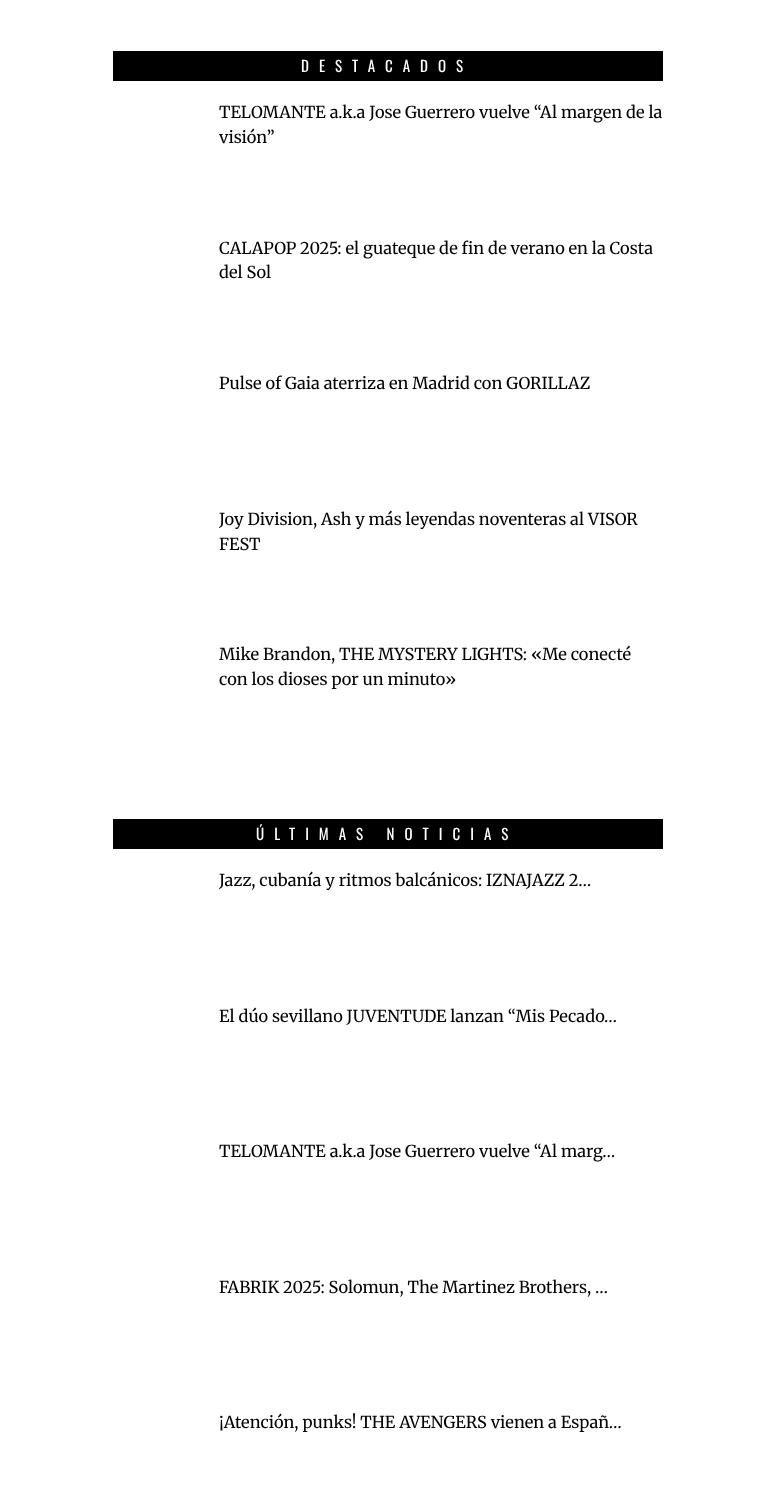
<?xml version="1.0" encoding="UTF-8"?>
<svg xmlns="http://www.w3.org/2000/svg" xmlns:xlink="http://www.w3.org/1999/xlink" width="775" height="1505">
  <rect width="100%" height="100%" fill="#ffffff" />
  <rect x="113" y="51" width="550" height="30" fill="#000000" />
  <rect x="113" y="819" width="550" height="30" fill="#000000" />
  <text x="301" y="72" style="font-family: Oswald; font-size: 15px; letter-spacing: 10px; fill: #ffffff">DESTACADOS</text>
  <text x="219" y="118" style="font-family: Merriweather; font-size: 16.4px; fill: #000000">TELOMANTE a.k.a Jose Guerrero vuelve “Al margen de la</text>
  <text x="219" y="143" style="font-family: Merriweather; font-size: 16.4px; fill: #000000">visión”</text>
  <text x="219" y="254" style="font-family: Merriweather; font-size: 16.4px; fill: #000000">CALAPOP 2025: el guateque de fin de verano en la Costa</text>
  <text x="219" y="278" style="font-family: Merriweather; font-size: 16.4px; fill: #000000">del Sol</text>
  <text x="219" y="389" style="font-family: Merriweather; font-size: 16.4px; fill: #000000">Pulse of Gaia aterriza en Madrid con GORILLAZ</text>
  <text x="219" y="525" style="font-family: Merriweather; font-size: 16.4px; fill: #000000">Joy Division, Ash y más leyendas noventeras al VISOR</text>
  <text x="219" y="550" style="font-family: Merriweather; font-size: 16.4px; fill: #000000">FEST</text>
  <text x="219" y="660" style="font-family: Merriweather; font-size: 16.4px; fill: #000000">Mike Brandon, THE MYSTERY LIGHTS: «Me conecté</text>
  <text x="219" y="685" style="font-family: Merriweather; font-size: 16.4px; fill: #000000">con los dioses por un minuto»</text>
  <text x="256" y="840" style="font-family: Oswald; font-size: 15px; letter-spacing: 10px; fill: #ffffff">ÚLTIMAS NOTICIAS</text>
  <text x="219" y="886" style="font-family: Merriweather; font-size: 16.4px; fill: #000000">Jazz, cubanía y ritmos balcánicos: IZNAJAZZ 2…</text>
  <text x="219" y="1022" style="font-family: Merriweather; font-size: 16.4px; fill: #000000">El dúo sevillano JUVENTUDE lanzan “Mis Pecado…</text>
  <text x="219" y="1157" style="font-family: Merriweather; font-size: 16.4px; fill: #000000">TELOMANTE a.k.a Jose Guerrero vuelve “Al marg…</text>
  <text x="219" y="1293" style="font-family: Merriweather; font-size: 16.4px; fill: #000000">FABRIK 2025: Solomun, The Martinez Brothers, …</text>
  <text x="219" y="1428" style="font-family: Merriweather; font-size: 16.4px; fill: #000000">¡Atención, punks! THE AVENGERS vienen a Españ…</text>
</svg>
